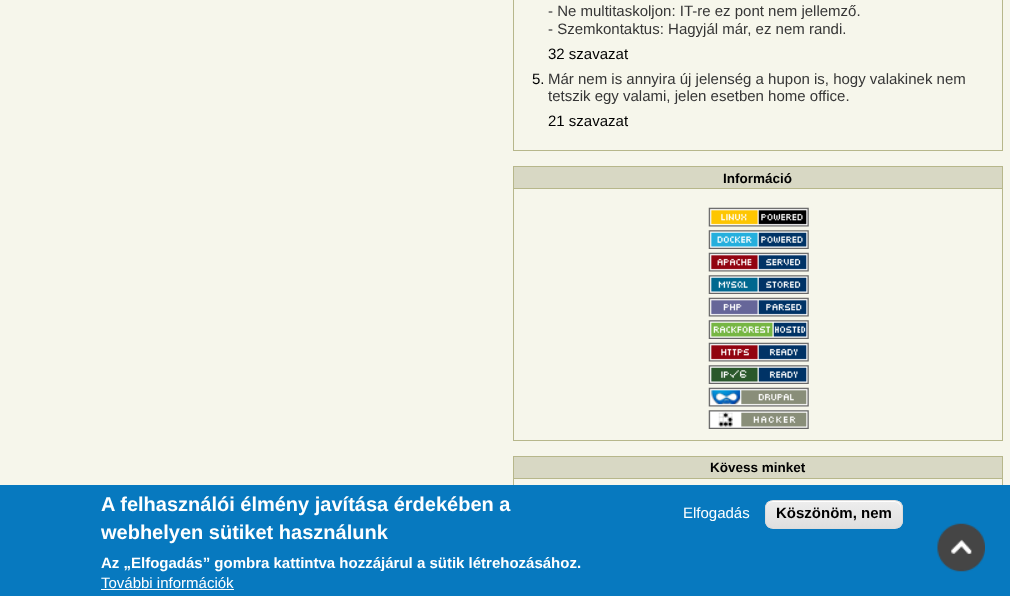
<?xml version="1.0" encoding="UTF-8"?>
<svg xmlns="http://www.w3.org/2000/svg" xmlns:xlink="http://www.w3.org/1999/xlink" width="1010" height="596">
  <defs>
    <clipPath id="clip1"><rect x="765" y="500" width="138" height="29" rx="8" /></clipPath>
    <linearGradient id="g1" gradientUnits="userSpaceOnUse" x1="834" y1="501" x2="834" y2="528"><stop offset="0.05" stop-color="#ededed" /><stop offset="1" stop-color="#dfdfdf" /></linearGradient>
  </defs>
  <rect width="100%" height="100%" fill="#f6f6eb" />
  <rect x="513.5" y="-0.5" width="489" height="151" fill="none" stroke="#b7b78b" />
  <rect x="513.5" y="166.5" width="489" height="274" fill="none" stroke="#b7b78b" />
  <rect x="513.5" y="166.5" width="489" height="22" fill="#d8d8c4" stroke="#b7b78b" />
  <image x="708" y="207" width="101" height="20" xlink:href="image1.png" />
  <image x="708" y="230" width="101" height="19" xlink:href="image2.png" />
  <image x="708" y="252" width="101" height="20" xlink:href="image3.png" />
  <image x="708" y="275" width="101" height="19" xlink:href="image4.png" />
  <image x="708" y="297" width="101" height="20" xlink:href="image5.png" />
  <image x="708" y="320" width="101" height="19" xlink:href="image6.png" />
  <image x="708" y="342" width="101" height="20" xlink:href="image7.png" />
  <image x="708" y="365" width="101" height="19" xlink:href="image8.png" />
  <image x="708" y="387" width="101" height="20" xlink:href="image9.png" />
  <image x="708" y="410" width="101" height="19" xlink:href="image10.png" />
  <rect x="513.5" y="456.5" width="489" height="68" fill="none" stroke="#b7b78b" />
  <rect x="513.5" y="456.5" width="489" height="22" fill="#d8d8c4" stroke="#b7b78b" />
  <rect y="485" width="1010" height="111" fill="#0779bf" />
  <rect x="101" y="589" width="133" height="1" fill="#ffffff" />
  <g clip-path="url(#clip1)">
    <rect x="765" y="501" width="138" height="27" fill="url(#g1)" />
  </g>
  <path d="M 772 502 h 123 c 3 0 6 3 6 7 v -2 c 0 -3 -3 -6 -6 -6 h -123 c -3 0 -6 3 -6 6 v 2 c 0 -4 3 -7 6 -7 z" fill="#ffffff" />
  <rect x="765.5" y="500.5" width="137" height="28" rx="7.5" fill="none" stroke="#dcdcdc" />
  <image x="937" y="523" width="48" height="49" xlink:href="image11.png" />
  <text x="548" y="16" style="font-family: Liberation Sans; font-size: 15px; fill: #363636">- Ne multitaskoljon: IT-re ez pont nem jellemző.</text>
  <text x="548" y="34" style="font-family: Liberation Sans; font-size: 15px; fill: #363636">- Szemkontaktus: Hagyjál már, ez nem randi.</text>
  <text x="548" y="59" style="font-family: Liberation Sans; font-size: 15px; fill: #000000">32 szavazat</text>
  <text x="532" y="84" style="font-family: Liberation Sans; font-size: 15px; fill: #000000">5.</text>
  <text x="548" y="84" style="font-family: Liberation Sans; font-size: 15px; fill: #363636">Már nem is annyira új jelenség a hupon is, hogy valakinek nem</text>
  <text x="548" y="101" style="font-family: Liberation Sans; font-size: 15px; fill: #363636">tetszik egy valami, jelen esetben home office.</text>
  <text x="548" y="126" style="font-family: Liberation Sans; font-size: 15px; fill: #000000">21 szavazat</text>
  <text x="723" y="183" style="font-family: Liberation Sans; font-size: 13.5px; font-weight: bold; fill: #000000">Információ</text>
  <text x="710" y="472" style="font-family: Liberation Sans; font-size: 13.5px; font-weight: bold; fill: #000000">Kövess minket</text>
  <text x="101" y="511" style="font-family: Liberation Sans; font-size: 20px; font-weight: bold; fill: #ffffff">A felhasználói élmény javítása érdekében a</text>
  <text x="101" y="539" style="font-family: Liberation Sans; font-size: 20px; font-weight: bold; fill: #ffffff">webhelyen sütiket használunk</text>
  <text x="101" y="568" style="font-family: Liberation Sans; font-size: 15px; font-weight: bold; fill: #ffffff">Az „Elfogadás” gombra kattintva hozzájárul a sütik létrehozásához.</text>
  <text x="101" y="588" style="font-family: Liberation Sans; font-size: 15px; fill: #ffffff">További információk</text>
  <text x="683" y="518" style="font-family: Liberation Sans; font-size: 15px; fill: #ffffff">Elfogadás</text>
  <text x="776" y="518" style="font-family: Liberation Sans; font-size: 15px; font-weight: bold; fill: #000000">Köszönöm, nem</text>
</svg>
